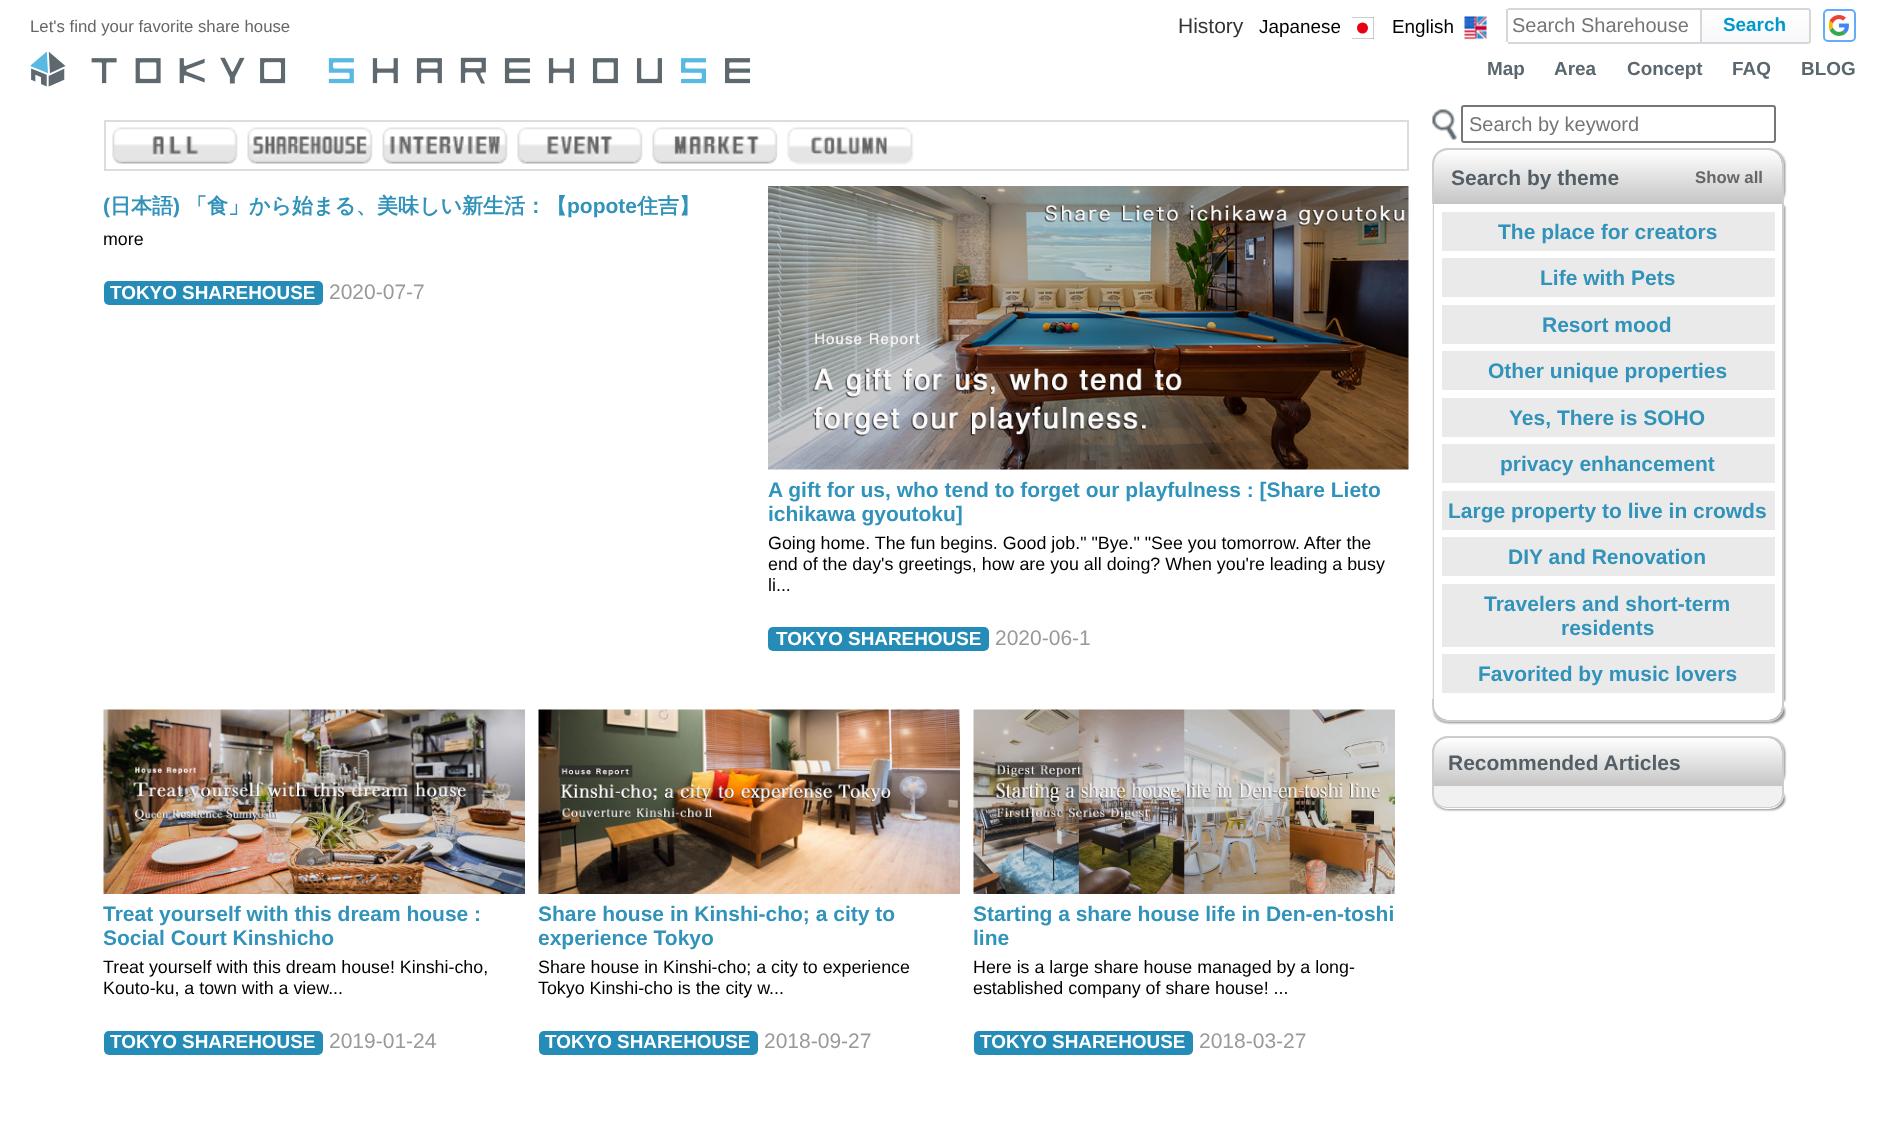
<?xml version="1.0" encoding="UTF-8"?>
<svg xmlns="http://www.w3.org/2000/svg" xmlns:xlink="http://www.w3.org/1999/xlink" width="1885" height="1125">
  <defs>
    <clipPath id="clip1"><rect x="1352" y="17" width="22" height="22" /></clipPath>
    <clipPath id="clip2"><path d="M 1700 8 h 108 c 1.5 0 3 1.5 3 3 v 30 c 0 1.5 -1.5 3 -3 3 h -108 z" /></clipPath>
    <linearGradient id="g1" gradientUnits="userSpaceOnUse" x1="1701" y1="9" x2="1701" y2="42"><stop offset="0" stop-color="#ffffff" /><stop offset="1" stop-color="#f8f8fa" /></linearGradient>
    <linearGradient id="g2" gradientUnits="userSpaceOnUse" x1="1608" y1="150" x2="1608" y2="204"><stop offset="0" stop-color="#ffffff" /><stop offset="1" stop-color="#c5c5c5" /></linearGradient>
    <linearGradient id="g3" gradientUnits="userSpaceOnUse" x1="1608" y1="738" x2="1608" y2="786"><stop offset="0" stop-color="#ffffff" /><stop offset="1" stop-color="#c5c5c5" /></linearGradient>
    <clipPath id="clip3"><path d="M 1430 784 h 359 v 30 h -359 z m 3 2 h 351 v 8 c 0 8.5 -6.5 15 -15 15 h -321 c -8.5 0 -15 -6.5 -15 -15 z" clip-rule="evenodd" /></clipPath>
    <clipPath id="clip4"><rect x="1469" y="113" width="300" height="22" /></clipPath>
  </defs>
  <rect width="100%" height="100%" fill="#ffffff" />
  <g clip-path="url(#clip1)">
    <path d="M 1351.5 17 h 22.5 v 22 h -22.5 z" fill="none" stroke="#707070" stroke-width="0.7" />
  </g>
  <circle cx="1362.5" cy="28" r="5.5" fill="#e60012" />
  <image x="1464" y="16" width="23" height="24" xlink:href="image1.png" />
  <rect x="1508" y="8" width="193" height="2" fill="#d6d7db" />
  <rect x="1508" y="42" width="193" height="2" fill="#d6d7db" />
  <rect x="1506" y="9" width="2" height="33" fill="#d6d7db" />
  <g clip-path="url(#clip2)">
    <rect x="1702" y="9" width="109" height="33" fill="url(#g1)" />
  </g>
  <path d="M 1701 9 h 107 c 1 0 2 1 2 2 v 30 c 0 1 -1 2 -2 2 h -107 z" fill="none" stroke="#d6d7db" stroke-width="2" />
  <rect x="1824" y="10" width="31" height="31" rx="4" fill="none" stroke="#66aaff" stroke-width="2" />
  <image x="1829" y="15" width="20" height="21" xlink:href="image2.png" />
  <image x="30" y="51" width="720" height="36" xlink:href="image3.png" />
  <rect x="105" y="121" width="1303" height="49" fill="none" stroke="#dddddd" stroke-width="2" />
  <image x="112" y="127" width="126" height="37" xlink:href="image4.png" />
  <image x="247" y="127" width="126" height="37" xlink:href="image5.png" />
  <image x="382" y="127" width="126" height="37" xlink:href="image6.png" />
  <image x="517" y="127" width="126" height="37" xlink:href="image7.png" />
  <image x="652" y="127" width="126" height="37" xlink:href="image8.png" />
  <image x="787" y="127" width="127" height="38" xlink:href="image9.png" />
  <rect x="104" y="281" width="219" height="24" rx="5" fill="#258cb7" />
  <image x="768" y="186" width="641" height="284" xlink:href="image10.png" />
  <rect x="768" y="627" width="221" height="24" rx="5" fill="#258cb7" />
  <image x="103" y="709" width="422" height="185" xlink:href="image11.png" />
  <rect x="104" y="1031" width="219" height="24" rx="5" fill="#258cb7" />
  <image x="538" y="709" width="422" height="185" xlink:href="image12.png" />
  <rect x="539" y="1031" width="219" height="24" rx="5" fill="#258cb7" />
  <image x="973" y="709" width="422" height="185" xlink:href="image13.png" />
  <rect x="974" y="1031" width="219" height="24" rx="5" fill="#258cb7" />
  <image x="1432" y="109" width="25" height="31" xlink:href="image14.png" />
  <rect x="1462" y="106" width="313" height="36" rx="2" fill="none" stroke="#767676" stroke-width="2" />
  <rect x="1434" y="150" width="351" height="56" rx="15" fill="#888888" filter="blur(1px)" />
  <path d="M 1448 150 h 320 c 7.5 0 14 6.5 14 14 v 40 h -348 v -40 c 0 -7.5 6.5 -14 14 -14 z" fill="url(#g2)" />
  <path d="M 1448 148 h 320 c 9 0 16 7 16 16 v 40 h -352 v -40 c 0 -9 7 -16 16 -16 z m 0 2 h 320 c 8 0 14 6 14 14 v 40 h -348 v -40 c 0 -8 6 -14 14 -14 z" fill="#cdcdcd" fill-rule="evenodd" />
  <rect x="1434" y="206" width="351" height="495" fill="#888888" filter="blur(1px)" />
  <rect x="1782" y="204" width="2" height="495" fill="#cdcdcd" />
  <rect x="1433" y="204" width="1" height="495" fill="#cdcdcd" />
  <rect x="1434" y="701" width="351" height="22" rx="15" fill="#888888" filter="blur(1px)" />
  <rect x="1434" y="204" width="348" height="495" fill="#ffffff" />
  <rect x="1442" y="212" width="333" height="39" fill="#eaeaea" />
  <rect x="1442" y="258" width="333" height="39" fill="#eaeaea" />
  <rect x="1442" y="305" width="333" height="39" fill="#eaeaea" />
  <rect x="1442" y="351" width="333" height="39" fill="#eaeaea" />
  <rect x="1442" y="398" width="333" height="39" fill="#eaeaea" />
  <rect x="1442" y="444" width="333" height="39" fill="#eaeaea" />
  <rect x="1442" y="491" width="333" height="39" fill="#eaeaea" />
  <rect x="1442" y="537" width="333" height="39" fill="#eaeaea" />
  <rect x="1442" y="584" width="333" height="63" fill="#eaeaea" />
  <rect x="1442" y="654" width="333" height="39" fill="#eaeaea" />
  <path d="M 1434 699 h 348 v 7 c 0 7.5 -6.5 14 -14 14 h -320 c -7.5 0 -14 -6.5 -14 -14 z" fill="#ffffff" />
  <path d="M 1432 699 h 352 v 7 c 0 9 -7 16 -16 16 h -320 c -9 0 -16 -7 -16 -16 z m 2 0 h 348 v 7 c 0 8 -6 14 -14 14 h -320 c -8 0 -14 -6 -14 -14 z" fill="#cdcdcd" fill-rule="evenodd" />
  <rect x="1434" y="738" width="351" height="50" rx="15" fill="#888888" filter="blur(1px)" />
  <path d="M 1448 738 h 320 c 7.5 0 14 6.5 14 14 v 34 h -348 v -34 c 0 -7.5 6.5 -14 14 -14 z" fill="url(#g3)" />
  <path d="M 1448 736 h 320 c 9 0 16 7 16 16 v 34 h -352 v -34 c 0 -9 7 -16 16 -16 z m 0 2 h 320 c 8 0 14 6 14 14 v 34 h -348 v -34 c 0 -8 6 -14 14 -14 z" fill="#cdcdcd" fill-rule="evenodd" />
  <g clip-path="url(#clip3)">
    <rect x="1434" y="788" width="351" height="22" rx="15" fill="#888888" filter="blur(1px)" />
  </g>
  <path d="M 1434 786 h 348 v 7 c 0 7.5 -6.5 14 -14 14 h -320 c -7.5 0 -14 -6.5 -14 -14 z" fill="#f1f1f1" />
  <path d="M 1432 786 h 352 v 8 c 0 8 -7 14 -16 14 h -320 c -9 0 -16 -6 -16 -14 z m 2 0 h 348 v 8 c 0 7 -6 13 -14 13 h -320 c -8 0 -14 -6 -14 -13 z" fill="#cdcdcd" fill-rule="evenodd" />
  <text x="30" y="32" style="font-family: Liberation Sans; font-size: 16.75px; fill: #666666">Let's find your favorite share house</text>
  <text x="1178" y="33" style="font-family: Liberation Sans; font-size: 21px; fill: #333333">History</text>
  <text x="1259" y="33" style="font-family: Liberation Sans; font-size: 18.9px; fill: #000000">Japanese</text>
  <text x="1392" y="33" style="font-family: Liberation Sans; font-size: 18.9px; fill: #000000">English</text>
  <text x="1512" y="32" style="font-family: Liberation Sans; font-size: 20px; fill: #757575">Search Sharehouse</text>
  <text x="1723" y="31" style="font-family: Liberation Sans; font-size: 18.9px; font-weight: bold; fill: #0099cc">Search</text>
  <text x="1487" y="75" style="font-family: Liberation Sans; font-size: 18.9px; font-weight: bold; fill: #5b676e">Map</text>
  <text x="1554" y="75" style="font-family: Liberation Sans; font-size: 18.9px; font-weight: bold; fill: #5b676e">Area</text>
  <text x="1627" y="75" style="font-family: Liberation Sans; font-size: 18.9px; font-weight: bold; fill: #5b676e">Concept</text>
  <text x="1732" y="75" style="font-family: Liberation Sans; font-size: 18.9px; font-weight: bold; fill: #5b676e">FAQ</text>
  <text x="1801" y="75" style="font-family: Liberation Sans; font-size: 18.9px; font-weight: bold; fill: #5b676e">BLOG</text>
  <text x="103" y="213" style="font-family: Liberation Sans; font-size: 21px; font-weight: bold; fill: #3192ba">(</text>
  <text x="110" y="213" style="font-family: WenQuanYi Zen Hei; font-size: 21px; font-weight: bold; fill: #3192ba">日本語</text>
  <text x="173" y="213" style="font-family: Liberation Sans; font-size: 21px; font-weight: bold; fill: #3192ba">)</text>
  <text x="186" y="213" style="font-family: WenQuanYi Zen Hei; font-size: 21px; font-weight: bold; fill: #3192ba">「食」から始まる、美味しい新生活：【</text>
  <text x="567" y="213" style="font-family: Liberation Sans; font-size: 21px; font-weight: bold; fill: #3192ba">popote</text>
  <text x="637" y="213" style="font-family: WenQuanYi Zen Hei; font-size: 21px; font-weight: bold; fill: #3192ba">住吉】</text>
  <text x="103" y="245" style="font-family: Liberation Sans; font-size: 17.85px; fill: #000000">more</text>
  <text x="110" y="299" style="font-family: Liberation Sans; font-size: 18.9px; font-weight: bold; fill: #ffffff">TOKYO SHAREHOUSE</text>
  <text x="329" y="299" style="font-family: Liberation Sans; font-size: 21px; fill: #999999">2020-07-7</text>
  <text x="768" y="497" style="font-family: Liberation Sans; font-size: 21px; font-weight: bold; fill: #3192ba">A gift for us, who tend to forget our playfulness : [Share Lieto</text>
  <text x="768" y="521" style="font-family: Liberation Sans; font-size: 21px; font-weight: bold; fill: #3192ba">ichikawa gyoutoku]</text>
  <text x="768" y="549" style="font-family: Liberation Sans; font-size: 17.85px; fill: #000000">Going home. The fun begins. Good job." "Bye." "See you tomorrow. After the</text>
  <text x="768" y="570" style="font-family: Liberation Sans; font-size: 17.85px; fill: #000000">end of the day's greetings, how are you all doing? When you're leading a busy</text>
  <text x="768" y="591" style="font-family: Liberation Sans; font-size: 17.85px; fill: #000000">li...</text>
  <text x="776" y="645" style="font-family: Liberation Sans; font-size: 18.9px; font-weight: bold; fill: #ffffff">TOKYO SHAREHOUSE</text>
  <text x="995" y="645" style="font-family: Liberation Sans; font-size: 21px; fill: #999999">2020-06-1</text>
  <text x="103" y="921" style="font-family: Liberation Sans; font-size: 21px; font-weight: bold; fill: #3192ba">Treat yourself with this dream house :</text>
  <text x="103" y="945" style="font-family: Liberation Sans; font-size: 21px; font-weight: bold; fill: #3192ba">Social Court Kinshicho</text>
  <text x="103" y="973" style="font-family: Liberation Sans; font-size: 17.85px; fill: #000000">Treat yourself with this dream house! Kinshi-cho,</text>
  <text x="103" y="994" style="font-family: Liberation Sans; font-size: 17.85px; fill: #000000">Kouto-ku, a town with a view...</text>
  <text x="110" y="1048" style="font-family: Liberation Sans; font-size: 18.9px; font-weight: bold; fill: #ffffff">TOKYO SHAREHOUSE</text>
  <text x="329" y="1048" style="font-family: Liberation Sans; font-size: 21px; fill: #999999">2019-01-24</text>
  <text x="538" y="921" style="font-family: Liberation Sans; font-size: 21px; font-weight: bold; fill: #3192ba">Share house in Kinshi-cho; a city to</text>
  <text x="538" y="945" style="font-family: Liberation Sans; font-size: 21px; font-weight: bold; fill: #3192ba">experience Tokyo</text>
  <text x="538" y="973" style="font-family: Liberation Sans; font-size: 17.85px; fill: #000000">Share house in Kinshi-cho; a city to experience</text>
  <text x="538" y="994" style="font-family: Liberation Sans; font-size: 17.85px; fill: #000000">Tokyo Kinshi-cho is the city w...</text>
  <text x="545" y="1048" style="font-family: Liberation Sans; font-size: 18.9px; font-weight: bold; fill: #ffffff">TOKYO SHAREHOUSE</text>
  <text x="764" y="1048" style="font-family: Liberation Sans; font-size: 21px; fill: #999999">2018-09-27</text>
  <text x="973" y="921" style="font-family: Liberation Sans; font-size: 21px; font-weight: bold; fill: #3192ba">Starting a share house life in Den-en-toshi</text>
  <text x="973" y="945" style="font-family: Liberation Sans; font-size: 21px; font-weight: bold; fill: #3192ba">line</text>
  <text x="973" y="973" style="font-family: Liberation Sans; font-size: 17.85px; fill: #000000">Here is a large share house managed by a long-</text>
  <text x="973" y="994" style="font-family: Liberation Sans; font-size: 17.85px; fill: #000000">established company of share house! ...</text>
  <text x="980" y="1048" style="font-family: Liberation Sans; font-size: 18.9px; font-weight: bold; fill: #ffffff">TOKYO SHAREHOUSE</text>
  <text x="1199" y="1048" style="font-family: Liberation Sans; font-size: 21px; fill: #999999">2018-03-27</text>
  <g clip-path="url(#clip4)">
    <text x="1469" y="131" style="font-family: Liberation Sans; font-size: 20px; fill: #757575">Search by keyword</text>
  </g>
  <text x="1451" y="185" style="font-family: Liberation Sans; font-size: 21px; font-weight: bold; fill: #535f66">Search by theme</text>
  <text x="1695" y="183" style="font-family: Liberation Sans; font-size: 16.75px; font-weight: bold; fill: #666666">Show all</text>
  <text x="1498" y="239" style="font-family: Liberation Sans; font-size: 21px; font-weight: bold; fill: #3192ba">The place for creators</text>
  <text x="1540" y="285" style="font-family: Liberation Sans; font-size: 21px; font-weight: bold; fill: #3192ba">Life with Pets</text>
  <text x="1542" y="332" style="font-family: Liberation Sans; font-size: 21px; font-weight: bold; fill: #3192ba">Resort mood</text>
  <text x="1488" y="378" style="font-family: Liberation Sans; font-size: 21px; font-weight: bold; fill: #3192ba">Other unique properties</text>
  <text x="1509" y="425" style="font-family: Liberation Sans; font-size: 21px; font-weight: bold; fill: #3192ba">Yes, There is SOHO</text>
  <text x="1500" y="471" style="font-family: Liberation Sans; font-size: 21px; font-weight: bold; fill: #3192ba">privacy enhancement</text>
  <text x="1448" y="518" style="font-family: Liberation Sans; font-size: 21px; font-weight: bold; fill: #3192ba">Large property to live in crowds</text>
  <text x="1508" y="564" style="font-family: Liberation Sans; font-size: 21px; font-weight: bold; fill: #3192ba">DIY and Renovation</text>
  <text x="1484" y="611" style="font-family: Liberation Sans; font-size: 21px; font-weight: bold; fill: #3192ba">Travelers and short-term</text>
  <text x="1561" y="635" style="font-family: Liberation Sans; font-size: 21px; font-weight: bold; fill: #3192ba">residents</text>
  <text x="1478" y="681" style="font-family: Liberation Sans; font-size: 21px; font-weight: bold; fill: #3192ba">Favorited by music lovers</text>
  <text x="1448" y="770" style="font-family: Liberation Sans; font-size: 21px; font-weight: bold; fill: #535f66">Recommended Articles</text>
</svg>
